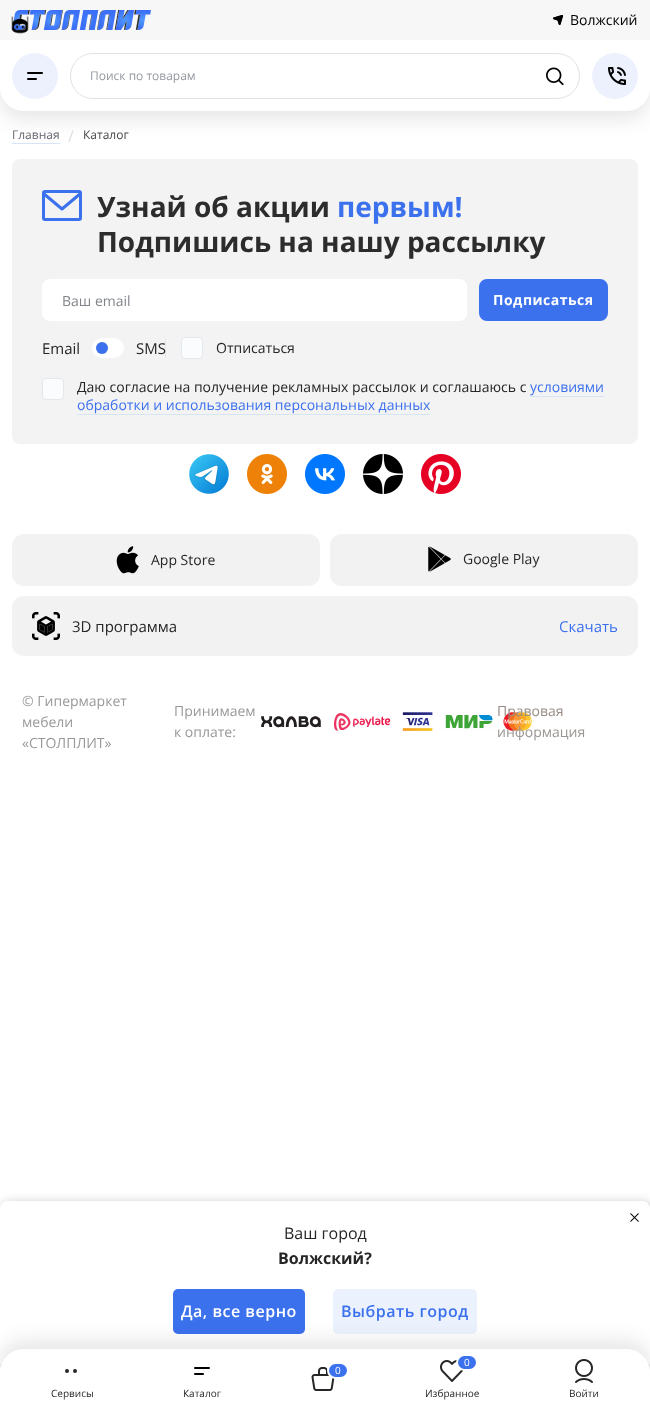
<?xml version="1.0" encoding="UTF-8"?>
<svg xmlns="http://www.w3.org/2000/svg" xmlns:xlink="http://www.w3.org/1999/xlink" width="650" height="1409">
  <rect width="100%" height="100%" fill="#ffffff" />
  <rect x="12" y="143" width="48" height="1" fill="#d6e5f4" />
  <rect y="8" width="650" height="111" rx="24" fill="#000000" fill-opacity="0.1" filter="blur(10px)" />
  <path d="M 0 0 h 650 v 87 c 0 13.5 -10.5 24 -24 24 h -602 c -13.5 0 -24 -10.5 -24 -24 z" fill="#ffffff" />
  <rect width="650" height="40" fill="#f7f7f7" />
  <image x="12" y="10" width="139" height="20" xlink:href="image1.png" />
  <image x="11" y="16" width="18" height="18" xlink:href="image2.png" />
  <image x="553" y="15" width="10" height="10" xlink:href="image3.png" />
  <rect x="2" y="1203" width="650" height="163" rx="8" fill="#000000" fill-opacity="0.25" filter="blur(5.5px)" />
  <path d="M 8 1201 h 634 c 4.5 0 8 3.5 8 8 v 155 h -650 v -155 c 0 -4.5 3.5 -8 8 -8 z" fill="#ffffff" />
  <image x="630" y="1213" width="9" height="9" xlink:href="image4.png" />
  <rect x="174" y="1290" width="130" height="43" rx="4" fill="#3c71ee" stroke="#3c71ee" stroke-width="2" />
  <rect x="334" y="1290" width="142" height="43" rx="4" fill="#ebf1fd" stroke="#ebf1fd" stroke-width="2" />
  <circle cx="35" cy="76" r="23" fill="#ecf1fd" />
  <rect x="27" y="72" width="16" height="2" rx="1" fill="#000000" />
  <rect x="27" y="78" width="10" height="2" rx="1" fill="#000000" />
  <rect x="70.5" y="53.5" width="509" height="45" rx="22.5" fill="none" stroke="#e2e2e2" />
  <image x="546" y="67" width="18" height="19" xlink:href="image5.png" />
  <circle cx="615" cy="76" r="23" fill="#ecf1fd" />
  <image x="608" y="67" width="18" height="18" xlink:href="image6.png" />
  <rect y="1341" width="650" height="60" rx="24" fill="#000000" fill-opacity="0.1" filter="blur(10px)" />
  <path d="M 24 1349 h 602 c 13.5 0 24 10.5 24 24 v 36 h -650 v -36 c 0 -13.5 10.5 -24 24 -24 z" fill="#ffffff" />
  <image x="311" y="1367" width="24" height="24" xlink:href="image7.png" />
  <rect x="328" y="1363" width="20" height="15" rx="7.5" fill="#3c71ee" stroke="#ffffff" stroke-width="2" />
  <image x="440" y="1360" width="24" height="22" xlink:href="image8.png" />
  <rect x="457" y="1355" width="20" height="15" rx="7.5" fill="#3c71ee" stroke="#ffffff" stroke-width="2" />
  <circle cx="75" cy="1371" r="2" fill="#262626" />
  <circle cx="67" cy="1371" r="2" fill="#262626" />
  <rect x="194" y="1367" width="16" height="2" rx="1" fill="#000000" />
  <rect x="194" y="1373" width="10" height="2" rx="1" fill="#000000" />
  <image x="575" y="1359" width="18" height="24" xlink:href="image9.png" />
  <rect x="12" y="159" width="626" height="285" rx="8" fill="#f3f3f3" />
  <rect x="43.5" y="191.5" width="37" height="28" rx="1.5" fill="none" stroke="#3c71ee" stroke-width="3" />
  <path d="M 43.5 193.5 l 18.5 15.5 l 18.5 -15.5" fill="none" stroke="#3c71ee" stroke-width="3" stroke-linejoin="round" />
  <rect x="42" y="279" width="425" height="42" rx="8" fill="#ffffff" />
  <rect x="480" y="280" width="127" height="40" rx="7" fill="#3c71ee" stroke="#3c71ee" stroke-width="2" />
  <rect x="92" y="338" width="32" height="20" rx="10" fill="#ffffff" />
  <circle cx="102" cy="348" r="6" fill="#3c71ee" />
  <rect x="165" y="339" width="1" height="18" fill="#000000" fill-opacity="0.05" />
  <rect x="181.5" y="337.5" width="21" height="21" rx="3.5" fill="#fbfcfd" stroke="#e3e8ed" />
  <rect x="42.5" y="378.5" width="21" height="21" rx="3.5" fill="#fbfcfd" stroke="#e3e8ed" />
  <rect x="530" y="396" width="74" height="1" fill="#d6e5f4" />
  <rect x="77" y="414" width="353" height="1" fill="#d6e5f4" />
  <image x="189" y="454" width="40" height="40" xlink:href="image10.png" />
  <image x="247" y="454" width="40" height="40" xlink:href="image11.png" />
  <image x="305" y="454" width="40" height="40" xlink:href="image12.png" />
  <image x="363" y="454" width="40" height="40" xlink:href="image13.png" />
  <image x="421" y="454" width="40" height="40" xlink:href="image14.png" />
  <rect x="12" y="534" width="308" height="52" rx="12" fill="#f2f2f2" />
  <image x="116" y="546" width="23" height="28" xlink:href="image15.png" />
  <rect x="330" y="534" width="308" height="52" rx="12" fill="#f2f2f2" />
  <image x="428" y="546" width="23" height="26" xlink:href="image16.png" />
  <rect x="12" y="596" width="626" height="60" rx="12" fill="#f2f2f2" />
  <image x="32" y="612" width="28" height="28" xlink:href="image17.png" />
  <image x="261" y="712" width="271" height="19" xlink:href="image18.png" />
  <text x="570" y="25" style="font-family: Open Sans; font-size: 14px; fill: #000000">Волжский</text>
  <text x="284" y="1239" style="font-family: Open Sans; font-size: 16px; fill: #262626">Ваш город</text>
  <text x="278" y="1264" style="font-family: Open Sans; font-size: 16px; font-weight: bold; fill: #262626">Волжский?</text>
  <text x="181" y="1317" style="font-family: Open Sans; font-size: 16px; font-weight: 600; letter-spacing: 0.5px; fill: #ffffff">Да, все верно</text>
  <text x="341" y="1317" style="font-family: Open Sans; font-size: 16px; font-weight: 600; letter-spacing: 0.5px; fill: #3c71ee">Выбрать город</text>
  <text x="90" y="80" style="font-family: Open Sans; font-size: 12px; fill: #9499a0">Поиск по товарам</text>
  <text x="335" y="1374" style="font-family: Open Sans; font-size: 10px; fill: #ffffff">0</text>
  <text x="464" y="1366" style="font-family: Open Sans; font-size: 10px; fill: #ffffff">0</text>
  <text x="425" y="1397" style="font-family: Open Sans; font-size: 10px; fill: #262626">Избранное</text>
  <text x="51" y="1397" style="font-family: Open Sans; font-size: 10px; fill: #262626">Сервисы</text>
  <text x="183" y="1397" style="font-family: Open Sans; font-size: 10px; fill: #262626">Каталог</text>
  <text x="569" y="1397" style="font-family: Open Sans; font-size: 10px; fill: #262626">Войти</text>
  <text x="12" y="139" style="font-family: Open Sans; font-size: 12px; fill: #66696f">Главная</text>
  <text x="68" y="142" style="font-family: Open Sans; font-size: 16px; fill: #dedede">/</text>
  <text x="83" y="139" style="font-family: Open Sans; font-size: 12px; fill: #46494d">Каталог</text>
  <text x="97" y="217" style="font-family: Open Sans; font-size: 28px; font-weight: bold; fill: #2c2c2c">Узнай об акции</text>
  <text x="337" y="217" style="font-family: Open Sans; font-size: 28px; font-weight: bold; fill: #3c71ee">первым!</text>
  <text x="97" y="252" style="font-family: Open Sans; font-size: 28px; font-weight: bold; fill: #2c2c2c">Подпишись на нашу рассылку</text>
  <text x="62" y="306" style="font-family: Open Sans; font-size: 14px; fill: #818489">Ваш email</text>
  <text x="493" y="305" style="font-family: Open Sans; font-size: 14px; font-weight: bold; letter-spacing: 0.5px; fill: #ffffff">Подписаться</text>
  <text x="42" y="354" style="font-family: Open Sans; font-size: 15px; fill: #262626">Email</text>
  <text x="136" y="354" style="font-family: Open Sans; font-size: 15px; fill: #262626">SMS</text>
  <text x="216" y="353" style="font-family: Open Sans; font-size: 14px; fill: #262626">Отписаться</text>
  <text x="77" y="392" style="font-family: Open Sans; font-size: 14px; fill: #262626">Даю согласие на получение рекламных рассылок и соглашаюсь с</text>
  <text x="530" y="392" style="font-family: Open Sans; font-size: 14px; fill: #3c71ee">условиями</text>
  <text x="77" y="410" style="font-family: Open Sans; font-size: 14px; fill: #3c71ee">обработки и использования персональных данных</text>
  <text x="151" y="565" style="font-family: Open Sans; font-size: 14px; fill: #262626">App Store</text>
  <text x="463" y="564" style="font-family: Open Sans; font-size: 14px; fill: #262626">Google Play</text>
  <text x="72" y="632" style="font-family: Open Sans; font-size: 15px; fill: #262626">3D программа</text>
  <text x="559" y="632" style="font-family: Open Sans; font-size: 15px; fill: #3c71ee">Скачать</text>
  <text x="22" y="706" style="font-family: Open Sans; font-size: 14px; fill: #999999">© Гипермаркет</text>
  <text x="22" y="727" style="font-family: Open Sans; font-size: 14px; fill: #999999">мебели</text>
  <text x="22" y="748" style="font-family: Open Sans; font-size: 14px; fill: #999999">«СТОЛПЛИТ»</text>
  <text x="174" y="716" style="font-family: Open Sans; font-size: 14px; fill: #999999">Принимаем</text>
  <text x="174" y="737" style="font-family: Open Sans; font-size: 14px; fill: #999999">к оплате:</text>
  <text x="497" y="716" style="font-family: Open Sans; font-size: 14px; fill: #988b84">Правовая</text>
  <text x="497" y="737" style="font-family: Open Sans; font-size: 14px; fill: #999693">информация</text>
</svg>
